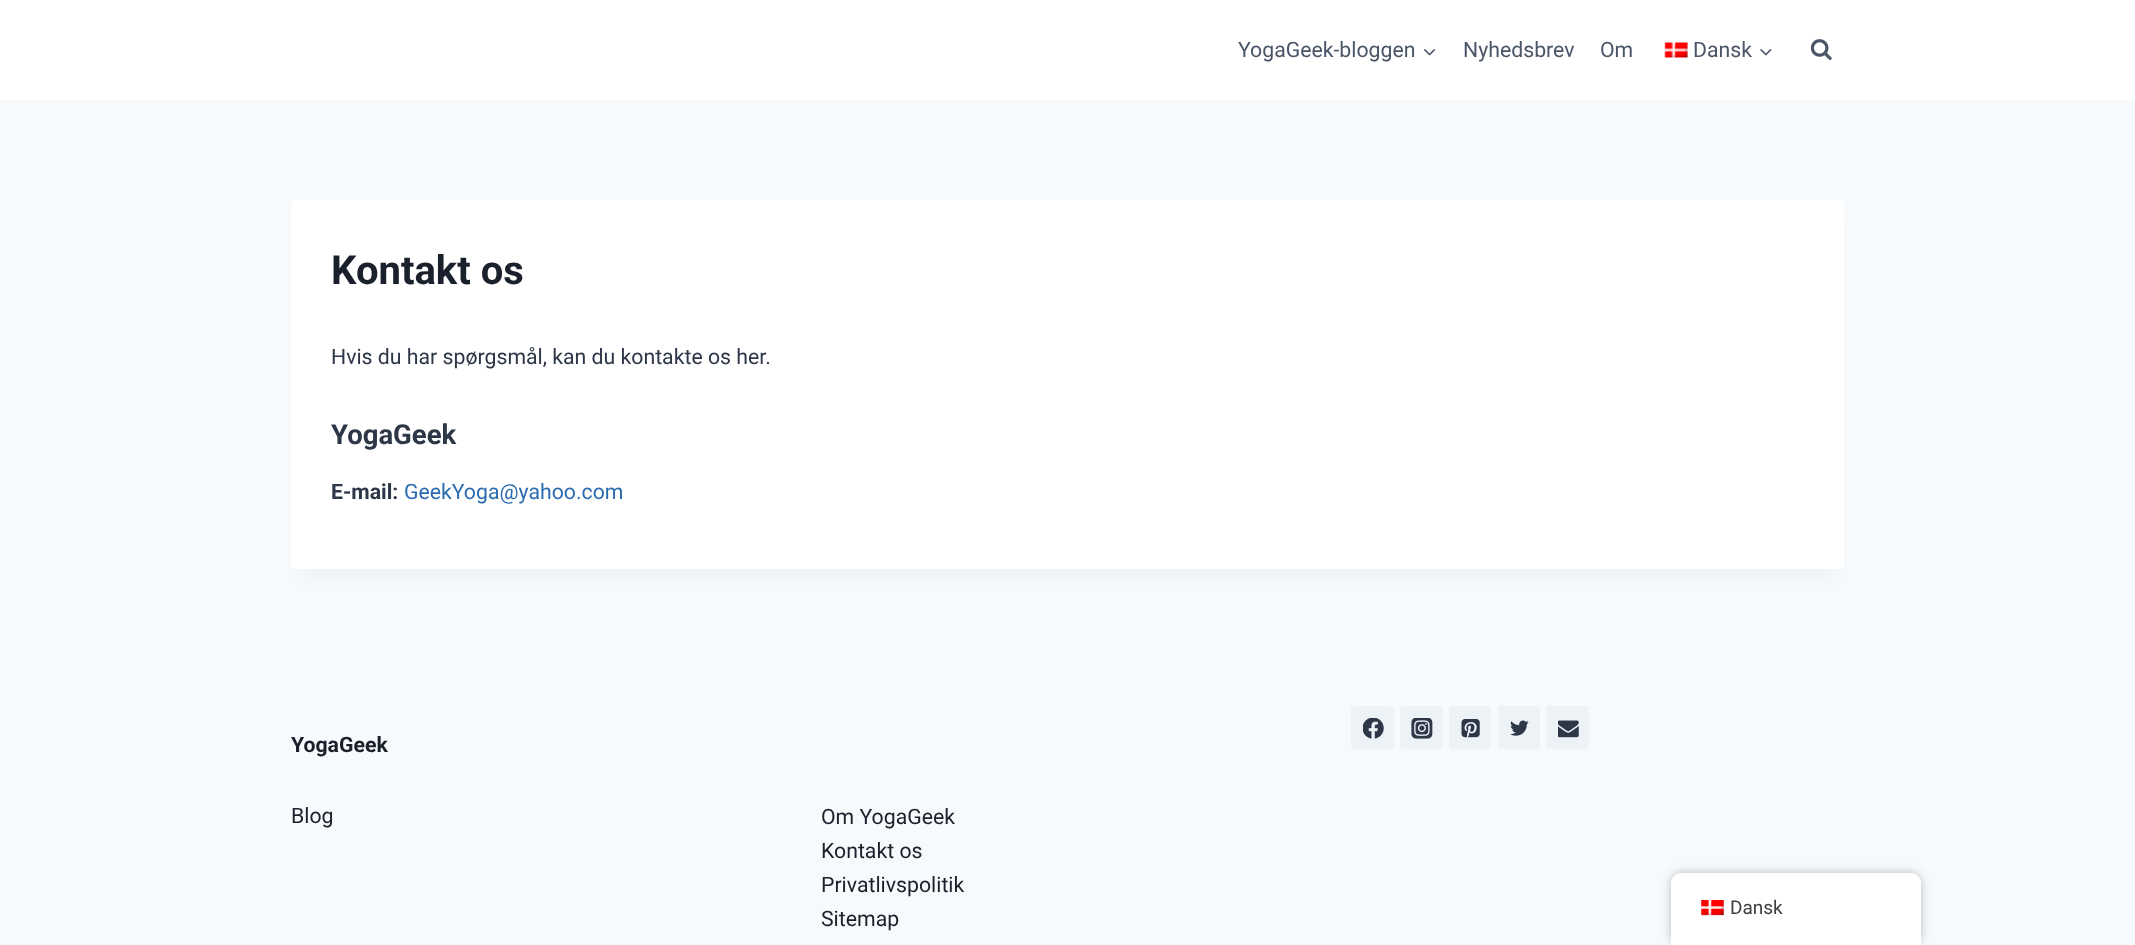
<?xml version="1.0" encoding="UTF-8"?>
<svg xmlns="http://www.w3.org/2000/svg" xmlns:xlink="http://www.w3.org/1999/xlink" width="2135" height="945">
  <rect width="100%" height="100%" fill="#f7fafc" />
  <rect width="2135" height="100" fill="#ffffff" />
  <image x="1424" y="49" width="12" height="7" xlink:href="image1.png" />
  <image x="1664" y="42" width="24" height="16" xlink:href="image2.png" />
  <image x="1760" y="49" width="12" height="7" xlink:href="image3.png" />
  <image x="1810" y="39" width="22" height="21" xlink:href="image4.png" />
  <rect x="304" y="231" width="1527" height="344" fill="#000000" fill-opacity="0.05" filter="blur(9.5px)" />
  <rect x="291" y="200" width="1553" height="369" rx="5" fill="#ffffff" />
  <rect x="1351" y="706" width="43" height="43" rx="4" fill="#edf2f7" />
  <image x="1363" y="718" width="21" height="21" xlink:href="image5.png" />
  <rect x="1400" y="706" width="43" height="43" rx="4" fill="#edf2f7" />
  <image x="1411" y="718" width="22" height="21" xlink:href="image6.png" />
  <rect x="1449" y="706" width="42" height="43" rx="4" fill="#edf2f7" />
  <image x="1461" y="719" width="19" height="19" xlink:href="image7.png" />
  <rect x="1498" y="706" width="42" height="43" rx="4" fill="#edf2f7" />
  <image x="1510" y="720" width="19" height="16" xlink:href="image8.png" />
  <rect x="1546" y="706" width="43" height="43" rx="4" fill="#edf2f7" />
  <image x="1558" y="720" width="21" height="18" xlink:href="image9.png" />
  <rect x="1671" y="873" width="250" height="72" rx="10" fill="#000000" fill-opacity="0.25" filter="blur(5px)" />
  <path d="M 1681 873 h 230 c 5.5 0 10 4.5 10 10 v 62 h -250 v -62 c 0 -5.5 4.5 -10 10 -10 z" fill="#ffffff" />
  <image x="1701" y="900" width="23" height="16" xlink:href="image10.png" />
  <text x="1238" y="57" style="font-family: Roboto; font-size: 21.25px; fill: #4a5568">YogaGeek-bloggen</text>
  <text x="1463" y="57" style="font-family: Roboto; font-size: 21.25px; fill: #4a5568">Nyhedsbrev</text>
  <text x="1600" y="57" style="font-family: Roboto; font-size: 21.25px; fill: #4a5568">Om</text>
  <text x="1693" y="57" style="font-family: Roboto; font-size: 21.25px; fill: #4a5568">Dansk</text>
  <text x="331" y="284" style="font-family: Roboto; font-size: 40px; font-weight: bold; fill: #1a202c">Kontakt os</text>
  <text x="331" y="364" style="font-family: Roboto; font-size: 21.25px; fill: #2d3748">Hvis du har spørgsmål, kan du kontakte os her.</text>
  <text x="331" y="444" style="font-family: Roboto; font-size: 27.5px; font-weight: bold; fill: #2d3748">YogaGeek</text>
  <text x="331" y="499" style="font-family: Roboto; font-size: 21.25px; font-weight: bold; fill: #2d3748">E-mail:</text>
  <text x="404" y="499" style="font-family: Roboto; font-size: 21.25px; fill: #2b6cb0">GeekYoga@yahoo.com</text>
  <text x="291" y="752" style="font-family: Roboto; font-size: 21.25px; font-weight: bold; fill: #1a202c">YogaGeek</text>
  <text x="291" y="823" style="font-family: Roboto; font-size: 21.25px; fill: #1a202c">Blog</text>
  <text x="821" y="824" style="font-family: Roboto; font-size: 21.25px; fill: #1a202c">Om YogaGeek</text>
  <text x="821" y="858" style="font-family: Roboto; font-size: 21.25px; fill: #1a202c">Kontakt os</text>
  <text x="821" y="892" style="font-family: Roboto; font-size: 21.25px; fill: #1a202c">Privatlivspolitik</text>
  <text x="821" y="926" style="font-family: Roboto; font-size: 21.25px; fill: #1a202c">Sitemap</text>
  <text x="1730" y="914" style="font-family: Roboto; font-size: 19px; fill: #404040">Dansk</text>
</svg>
